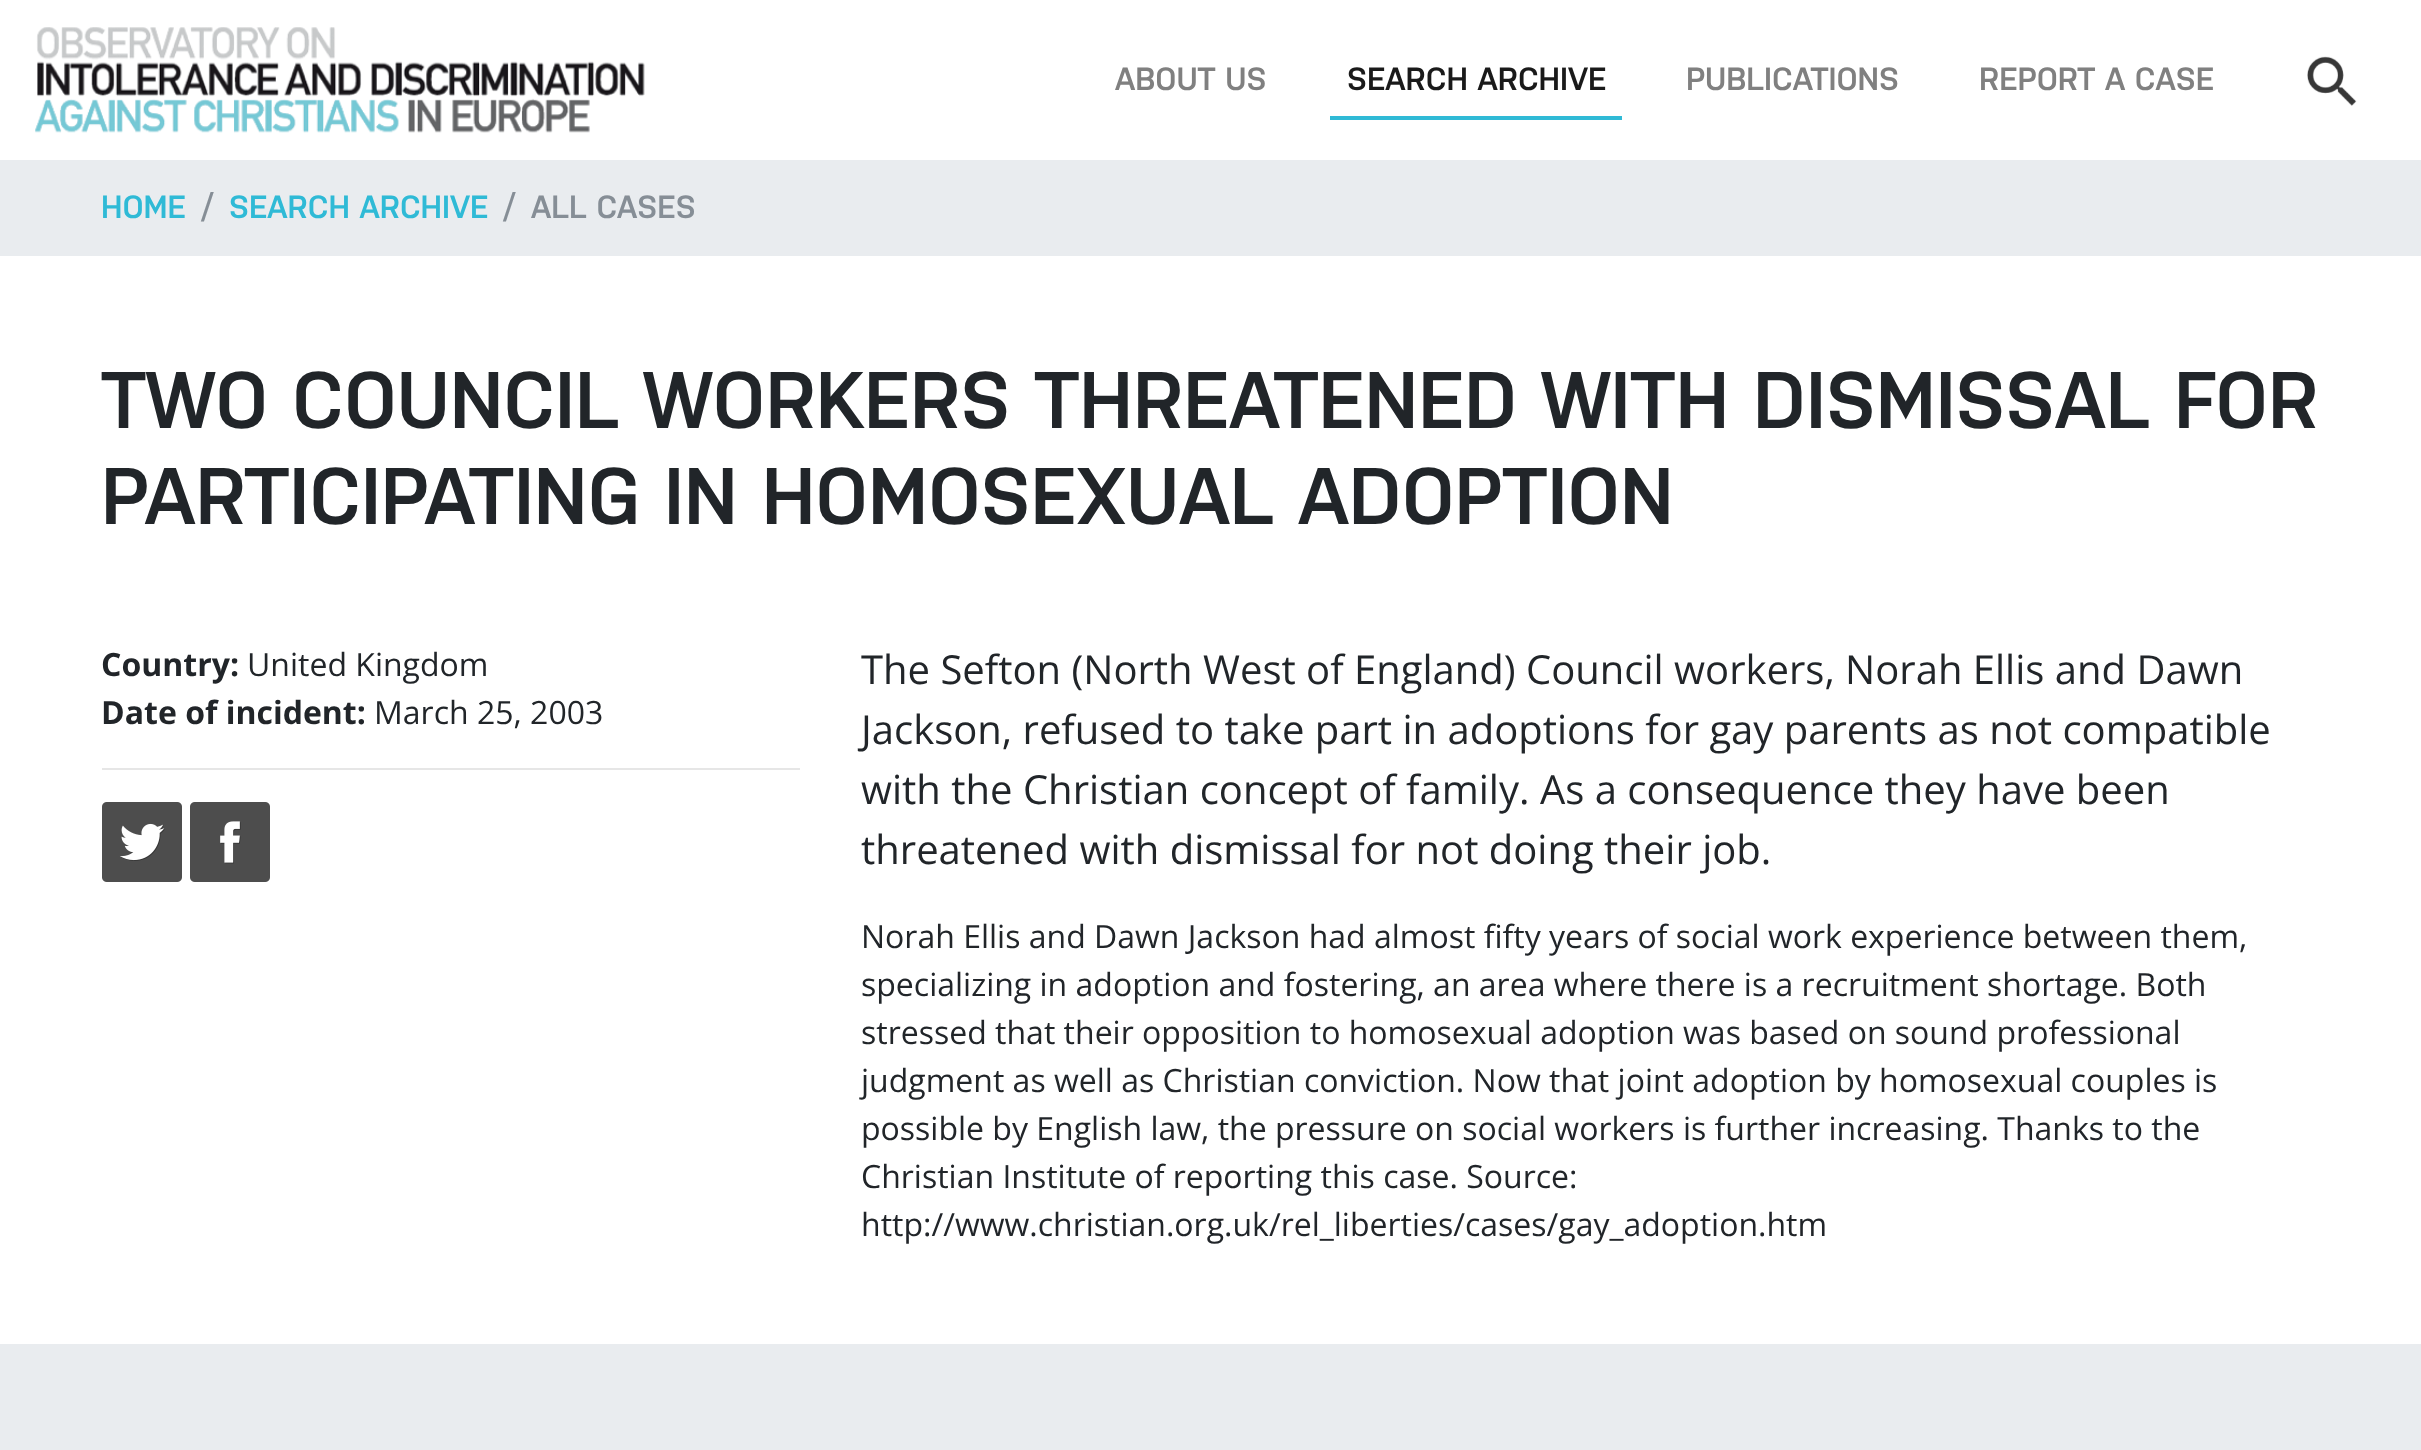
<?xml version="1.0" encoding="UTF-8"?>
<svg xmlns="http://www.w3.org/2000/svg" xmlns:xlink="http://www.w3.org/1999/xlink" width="2421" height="1450">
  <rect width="100%" height="100%" fill="#ffffff" />
  <image x="35" y="27" width="610" height="106" xlink:href="image1.png" />
  <rect x="1330" y="116" width="292" height="4" fill="#2fbad6" />
  <image x="2307" y="56" width="50" height="50" xlink:href="image2.png" />
  <rect y="160" width="2421" height="96" fill="#e9ecef" />
  <rect x="102" y="768" width="698" height="2" fill="#e6e6e6" />
  <image x="102" y="802" width="80" height="80" xlink:href="image3.png" />
  <image x="190" y="802" width="80" height="80" xlink:href="image4.png" />
  <rect y="1344" width="2421" height="106" fill="#e9ecef" />
  <text x="1115" y="90" style="font-family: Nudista; font-size: 32px; font-weight: 600; fill: #808080">ABOUT US</text>
  <text x="1347" y="90" style="font-family: Nudista; font-size: 32px; font-weight: 600; fill: #1a1a1a">SEARCH ARCHIVE</text>
  <text x="1686" y="90" style="font-family: Nudista; font-size: 32px; font-weight: 600; fill: #808080">PUBLICATIONS</text>
  <text x="1979" y="90" style="font-family: Nudista; font-size: 32px; font-weight: 600; fill: #808080">REPORT A CASE</text>
  <text x="101" y="218" style="font-family: Nudista; font-size: 32px; font-weight: 600; fill: #2fbad6">HOME</text>
  <text x="202" y="218" style="font-family: Nudista; font-size: 32px; font-weight: 600; fill: #868e96">/</text>
  <text x="229" y="218" style="font-family: Nudista; font-size: 32px; font-weight: 600; fill: #2fbad6">SEARCH ARCHIVE</text>
  <text x="504" y="218" style="font-family: Nudista; font-size: 32px; font-weight: 600; fill: #868e96">/</text>
  <text x="531" y="218" style="font-family: Nudista; font-size: 32px; font-weight: 600; fill: #868e96">ALL CASES</text>
  <text x="101" y="428" style="font-family: Nudista; font-size: 80px; font-weight: 600; fill: #212529">TWO COUNCIL WORKERS THREATENED WITH DISMISSAL FOR</text>
  <text x="101" y="524" style="font-family: Nudista; font-size: 80px; font-weight: 600; fill: #212529">PARTICIPATING IN HOMOSEXUAL ADOPTION</text>
  <text x="101" y="676" style="font-family: Open Sans; font-size: 32px; font-weight: bold; fill: #212529">Country:</text>
  <text x="247" y="676" style="font-family: Open Sans; font-size: 32px; fill: #212529">United Kingdom</text>
  <text x="101" y="724" style="font-family: Open Sans; font-size: 32px; font-weight: bold; fill: #212529">Date of incident:</text>
  <text x="374" y="724" style="font-family: Open Sans; font-size: 32px; fill: #212529">March 25, 2003</text>
  <text x="861" y="684" style="font-family: Open Sans; font-size: 40px; fill: #212529">The Sefton (North West of England) Council workers, Norah Ellis and Dawn</text>
  <text x="861" y="744" style="font-family: Open Sans; font-size: 40px; fill: #212529">Jackson, refused to take part in adoptions for gay parents as not compatible</text>
  <text x="861" y="804" style="font-family: Open Sans; font-size: 40px; fill: #212529">with the Christian concept of family. As a consequence they have been</text>
  <text x="861" y="864" style="font-family: Open Sans; font-size: 40px; fill: #212529">threatened with dismissal for not doing their job.</text>
  <text x="861" y="948" style="font-family: Open Sans; font-size: 32px; fill: #212529">Norah Ellis and Dawn Jackson had almost fifty years of social work experience between them,</text>
  <text x="861" y="996" style="font-family: Open Sans; font-size: 32px; fill: #212529">specializing in adoption and fostering, an area where there is a recruitment shortage. Both</text>
  <text x="861" y="1044" style="font-family: Open Sans; font-size: 32px; fill: #212529">stressed that their opposition to homosexual adoption was based on sound professional</text>
  <text x="861" y="1092" style="font-family: Open Sans; font-size: 32px; fill: #212529">judgment as well as Christian conviction. Now that joint adoption by homosexual couples is</text>
  <text x="861" y="1140" style="font-family: Open Sans; font-size: 32px; fill: #212529">possible by English law, the pressure on social workers is further increasing. Thanks to the</text>
  <text x="861" y="1188" style="font-family: Open Sans; font-size: 32px; fill: #212529">Christian Institute of reporting this case. Source:</text>
  <text x="861" y="1236" style="font-family: Open Sans; font-size: 32px; fill: #212529">http://www.christian.org.uk/rel_liberties/cases/gay_adoption.htm</text>
</svg>
